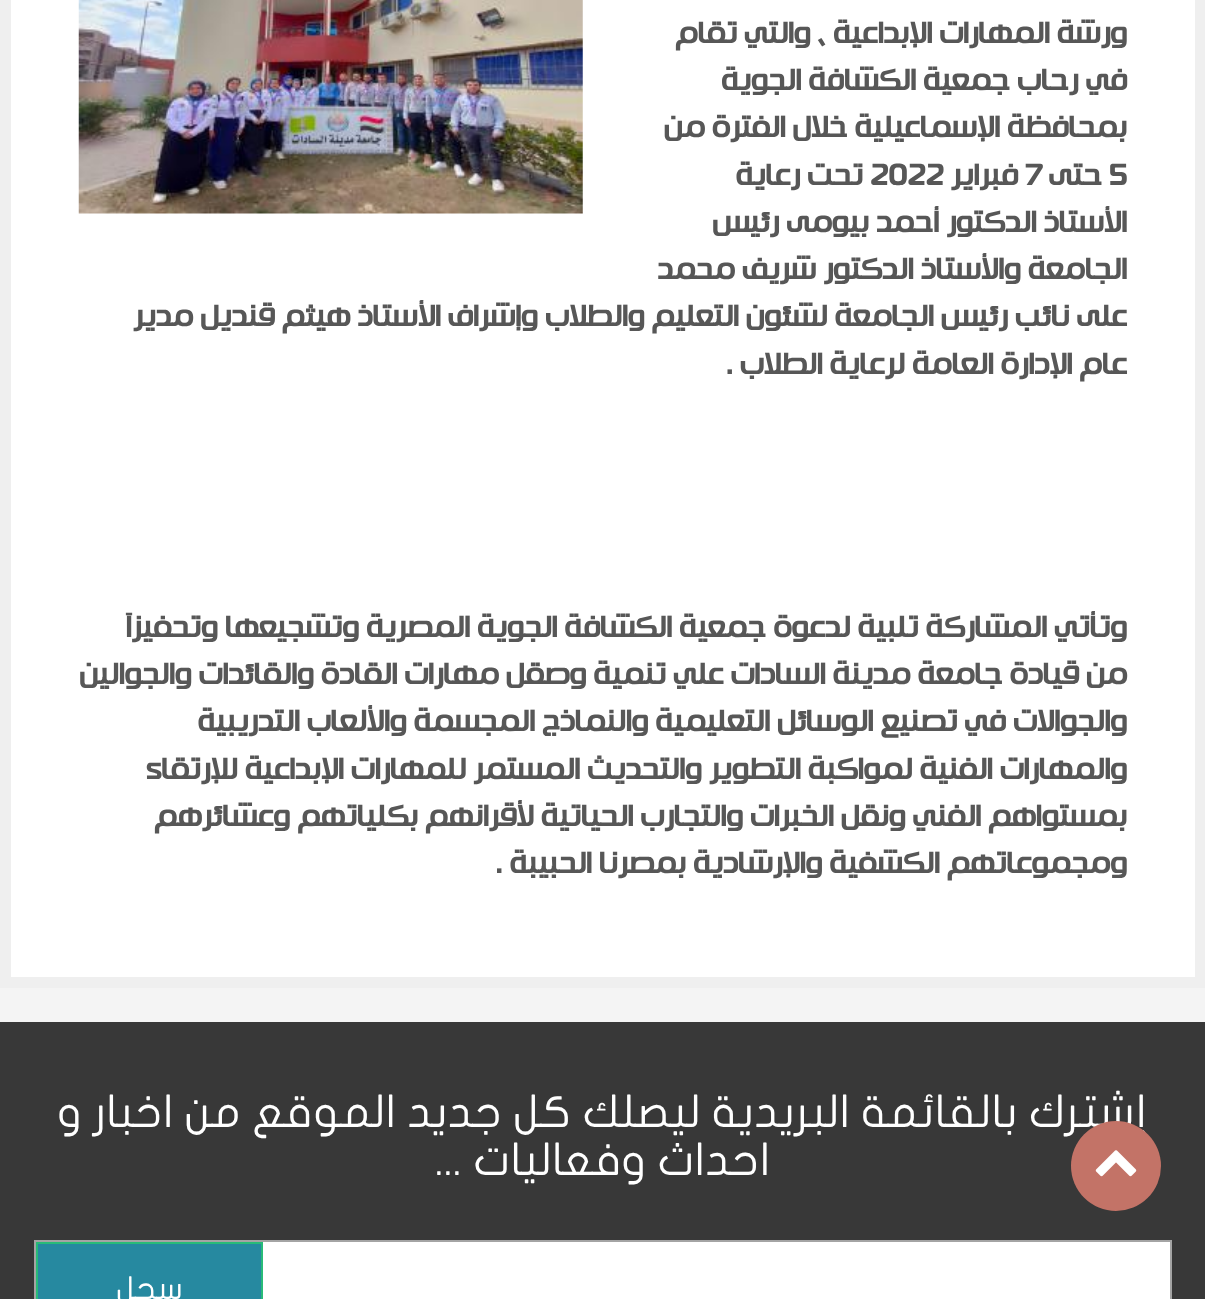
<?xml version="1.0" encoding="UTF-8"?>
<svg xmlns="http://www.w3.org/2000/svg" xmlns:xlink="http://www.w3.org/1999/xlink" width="1205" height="1299">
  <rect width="100%" height="100%" fill="#f4f4f4" />
  <rect x="5.5" y="-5.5" width="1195" height="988" fill="#ffffff" stroke="#efefef" stroke-width="11" />
  <image x="78" y="0" width="505" height="214" xlink:href="image1.png" />
  <rect y="1022" width="1205" height="277" fill="#383838" />
  <rect x="35" y="1241" width="1136" height="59" fill="none" stroke="#a4a4a4" stroke-width="2" />
  <rect x="263" y="1242" width="907" height="57" fill="#ffffff" />
  <rect x="36" y="1242" width="227" height="57" fill="#28bb78" />
  <rect x="38" y="1244" width="223" height="55" fill="#2689a0" />
  <text x="1127" y="43" style="font-family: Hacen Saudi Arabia; font-size: 29.25px; font-weight: bold; direction: rtl; fill: #575757">ورشة المهارات الإبداعية ، والتي تقام</text>
  <text x="1127" y="90" style="font-family: Hacen Saudi Arabia; font-size: 29.25px; font-weight: bold; direction: rtl; fill: #575757">في رحاب جمعية الكشافة الجوية</text>
  <text x="1127" y="137" style="font-family: Hacen Saudi Arabia; font-size: 29.25px; font-weight: bold; direction: rtl; fill: #575757">بمحافظة الإسماعيلية خلال الفترة من</text>
  <text x="1109" y="185" style="font-family: Hacen Saudi Arabia; font-size: 29.25px; font-weight: bold; fill: #575757">5</text>
  <text x="1102" y="185" style="font-family: Hacen Saudi Arabia; font-size: 29.25px; font-weight: bold; direction: rtl; fill: #575757">حتى</text>
  <text x="1026" y="185" style="font-family: Hacen Saudi Arabia; font-size: 29.25px; font-weight: bold; fill: #575757">7</text>
  <text x="1018" y="185" style="font-family: Hacen Saudi Arabia; font-size: 29.25px; font-weight: bold; direction: rtl; fill: #575757">فبراير</text>
  <text x="870" y="185" style="font-family: Hacen Saudi Arabia; font-size: 29.25px; font-weight: bold; fill: #575757">2022</text>
  <text x="863" y="185" style="font-family: Hacen Saudi Arabia; font-size: 29.25px; font-weight: bold; direction: rtl; fill: #575757">تحت رعاية</text>
  <text x="1127" y="232" style="font-family: Hacen Saudi Arabia; font-size: 29.25px; font-weight: bold; direction: rtl; fill: #575757">الأستاذ الدكتور أحمد بيومى رئيس</text>
  <text x="1127" y="279" style="font-family: Hacen Saudi Arabia; font-size: 29.25px; font-weight: bold; direction: rtl; fill: #575757">الجامعة والأستاذ الدكتور شريف محمد</text>
  <text x="1127" y="326" style="font-family: Hacen Saudi Arabia; font-size: 29.25px; font-weight: bold; direction: rtl; fill: #575757">على نائب رئيس الجامعة لشئون التعليم والطلاب وإشراف الأستاذ هيثم قنديل مدير</text>
  <text x="1127" y="374" style="font-family: Hacen Saudi Arabia; font-size: 29.25px; font-weight: bold; direction: rtl; fill: #575757">عام الإدارة العامة لرعاية الطلاب .</text>
  <text x="1127" y="637" style="font-family: Hacen Saudi Arabia; font-size: 29.25px; font-weight: bold; direction: rtl; fill: #575757">وتأتي المشاركة تلبية لدعوة جمعية الكشافة الجوية المصرية وتشجيعها وتحفيزآ</text>
  <text x="1127" y="684" style="font-family: Hacen Saudi Arabia; font-size: 29.25px; font-weight: bold; direction: rtl; fill: #575757">من قيادة جامعة مدينة السادات علي تنمية وصقل مهارات القادة والقائدات والجوالين</text>
  <text x="1127" y="731" style="font-family: Hacen Saudi Arabia; font-size: 29.25px; font-weight: bold; direction: rtl; fill: #575757">والجوالات في تصنيع الوسائل التعليمية والنماذج المجسمة والألعاب التدريبية</text>
  <text x="1127" y="779" style="font-family: Hacen Saudi Arabia; font-size: 29.25px; font-weight: bold; direction: rtl; fill: #575757">والمهارات الفنية لمواكبة التطوير والتحديث المستمر للمهارات الإبداعية للإرتقاء</text>
  <text x="1127" y="826" style="font-family: Hacen Saudi Arabia; font-size: 29.25px; font-weight: bold; direction: rtl; fill: #575757">بمستواهم الفني ونقل الخبرات والتجارب الحياتية لأقرانهم بكلياتهم وعشائرهم</text>
  <text x="1127" y="873" style="font-family: Hacen Saudi Arabia; font-size: 29.25px; font-weight: bold; direction: rtl; fill: #575757">ومجموعاتهم الكشفية والإرشادية بمصرنا الحبيبة .</text>
  <text x="1148" y="1127" style="font-family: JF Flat; font-size: 45px; direction: rtl; fill: #ffffff">إشترك بالقائمة البريدية ليصلك كل جديد الموقع من اخبار و</text>
  <text x="770" y="1175" style="font-family: JF Flat; font-size: 45px; direction: rtl; fill: #ffffff">احداث وفعاليات ...</text>
  <text x="183" y="1299" style="font-family: JF Flat; font-size: 31.5px; direction: rtl; fill: #ffffff">سجل</text>
  <circle cx="1116" cy="1166" r="45" fill="#c37367" />
  <image x="1095" y="1150" width="42" height="27" xlink:href="image2.png" />
</svg>
